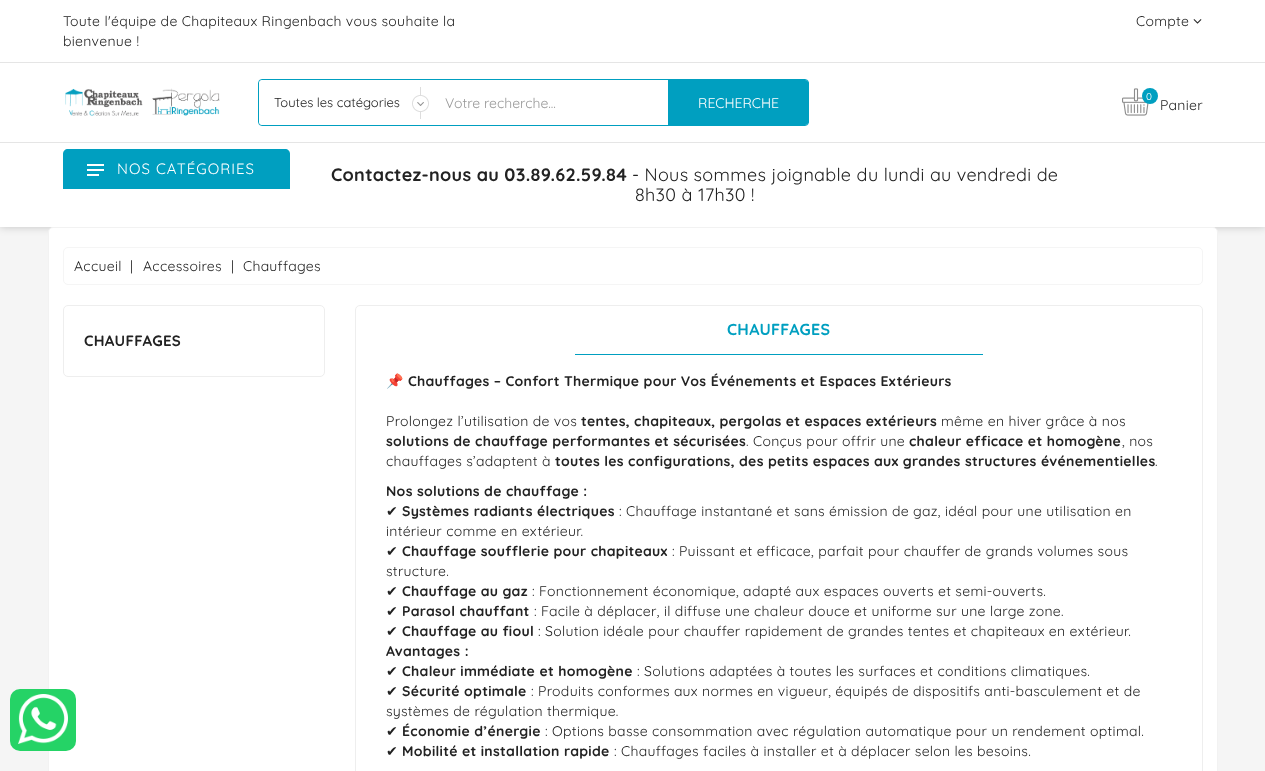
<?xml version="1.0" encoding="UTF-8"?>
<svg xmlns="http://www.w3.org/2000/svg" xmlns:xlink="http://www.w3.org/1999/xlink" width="1265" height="771">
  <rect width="100%" height="100%" fill="#f5f5f5" />
  <rect width="1265" height="227" fill="#000000" fill-opacity="0.2" filter="blur(4px)" />
  <rect x="48.5" y="227.5" width="1169" height="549" rx="4.5" fill="#ffffff" stroke="#f2f2f2" />
  <rect x="10" y="689" width="66" height="62" rx="10" fill="#25d366" />
  <image x="18" y="694" width="50" height="50" xlink:href="image1.png" />
  <rect width="1265" height="227" fill="#ffffff" />
  <rect y="62" width="1265" height="1" fill="#e5e5e5" />
  <image x="1193" y="19" width="9" height="5" xlink:href="image2.png" />
  <image x="65" y="88" width="155" height="28" xlink:href="image3.png" />
  <rect x="258.5" y="79.5" width="550" height="46" rx="3.5" fill="none" stroke="#009fc0" />
  <rect x="259" y="80" width="170" height="45" rx="4" fill="#ffffff" />
  <image x="412" y="87" width="17" height="32" xlink:href="image4.png" />
  <path d="M 668 80 h 137 c 2 0 4 2 4 4 v 37 c 0 2 -2 4 -4 4 h -137 z" fill="#009fc0" />
  <image x="1122" y="88" width="27" height="28" xlink:href="image5.png" />
  <circle cx="1150" cy="96" r="8" fill="#009fc0" />
  <rect y="142" width="1265" height="1" fill="#e5e5e5" />
  <path d="M 68 149 h 217 c 3 0 5 2 5 5 v 35 h -227 v -35 c 0 -3 2 -5 5 -5 z" fill="#009fc0" />
  <rect x="87" y="164" width="17" height="2" fill="#ffffff" />
  <rect x="87" y="169" width="17" height="2" fill="#ffffff" />
  <rect x="87" y="174" width="12" height="2" fill="#ffffff" />
  <rect x="63.5" y="247.5" width="1139" height="37" rx="4.5" fill="none" stroke="#f5f5f5" />
  <rect x="63.5" y="305.5" width="261" height="71" rx="4.5" fill="none" stroke="#eeeeee" />
  <rect x="355.5" y="305.5" width="847" height="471" rx="4.5" fill="none" stroke="#eeeeee" />
  <rect x="575" y="354" width="408" height="1" fill="#009fc0" />
  <text x="63" y="26" style="font-family: Quicksand; font-size: 14px; letter-spacing: 0.3px; fill: #222222">Toute l'équipe de Chapiteaux Ringenbach vous souhaite la</text>
  <text x="63" y="46" style="font-family: Quicksand; font-size: 14px; letter-spacing: 0.3px; fill: #222222">bienvenue !</text>
  <text x="1136" y="26" style="font-family: Quicksand; font-size: 14px; letter-spacing: 0.3px; fill: #222222">Compte</text>
  <text x="274" y="107" style="font-family: Quicksand; font-size: 13px; fill: #222222">Toutes les catégories</text>
  <text x="445" y="108" style="font-family: Quicksand; font-size: 14px; fill: #999999">Votre recherche...</text>
  <text x="698" y="108" style="font-family: Quicksand; font-size: 14px; fill: #ffffff">RECHERCHE</text>
  <text x="1146" y="100" style="font-family: Quicksand; font-size: 10px; letter-spacing: 0.3px; fill: #ffffff">0</text>
  <text x="1160" y="110" style="font-family: Quicksand; font-size: 14px; letter-spacing: 0.3px; fill: #222222">Panier</text>
  <text x="117" y="174" style="font-family: Quicksand; font-size: 15px; letter-spacing: 1px; fill: #ffffff">NOS CATÉGORIES</text>
  <text x="331" y="181" style="font-family: Quicksand; font-size: 18px; font-weight: bold; letter-spacing: 0.3px; fill: #222222">Contactez-nous au 03.89.62.59.84</text>
  <text x="632" y="181" style="font-family: Quicksand; font-size: 18px; letter-spacing: 0.3px; fill: #222222">- Nous sommes joignable du lundi au vendredi de</text>
  <text x="635" y="201" style="font-family: Quicksand; font-size: 18px; letter-spacing: 0.3px; fill: #222222">8h30 à 17h30 !</text>
  <text x="74" y="271" style="font-family: Quicksand; font-size: 14px; letter-spacing: 0.3px; fill: #222222">Accueil</text>
  <text x="130" y="271" style="font-family: Quicksand; font-size: 14px; letter-spacing: 0.3px; fill: #222222">|</text>
  <text x="143" y="271" style="font-family: Quicksand; font-size: 14px; letter-spacing: 0.3px; fill: #222222">Accessoires</text>
  <text x="231" y="271" style="font-family: Quicksand; font-size: 14px; letter-spacing: 0.3px; fill: #222222">|</text>
  <text x="243" y="271" style="font-family: Quicksand; font-size: 14px; letter-spacing: 0.3px; fill: #222222">Chauffages</text>
  <text x="84" y="346" style="font-family: Quicksand; font-size: 15px; font-weight: bold; letter-spacing: 0.3px; fill: #222222">CHAUFFAGES</text>
  <text x="727" y="335" style="font-family: Quicksand; font-size: 16px; font-weight: bold; letter-spacing: 0.3px; fill: #009fc0">CHAUFFAGES</text>
  <text x="386" y="386" style="font-family: Noto Color Emoji; font-size: 14px; font-weight: bold; letter-spacing: 0.3px; fill: #222222">📌</text>
  <text x="408" y="386" style="font-family: Quicksand; font-size: 14px; font-weight: bold; letter-spacing: 0.3px; fill: #222222">Chauffages – Confort Thermique pour Vos Événements et Espaces Extérieurs</text>
  <text x="386" y="426" style="font-family: Quicksand; font-size: 14px; letter-spacing: 0.3px; fill: #222222">Prolongez l’utilisation de vos</text>
  <text x="581" y="426" style="font-family: Quicksand; font-size: 14px; font-weight: bold; letter-spacing: 0.3px; fill: #222222">tentes, chapiteaux, pergolas et espaces extérieurs</text>
  <text x="941" y="426" style="font-family: Quicksand; font-size: 14px; letter-spacing: 0.3px; fill: #222222">même en hiver grâce à nos</text>
  <text x="386" y="446" style="font-family: Quicksand; font-size: 14px; font-weight: bold; letter-spacing: 0.3px; fill: #222222">solutions de chauffage performantes et sécurisées</text>
  <text x="746" y="446" style="font-family: Quicksand; font-size: 14px; letter-spacing: 0.3px; fill: #222222">. Conçus pour offrir une</text>
  <text x="909" y="446" style="font-family: Quicksand; font-size: 14px; font-weight: bold; letter-spacing: 0.3px; fill: #222222">chaleur efficace et homogène</text>
  <text x="1122" y="446" style="font-family: Quicksand; font-size: 14px; letter-spacing: 0.3px; fill: #222222">, nos</text>
  <text x="386" y="466" style="font-family: Quicksand; font-size: 14px; letter-spacing: 0.3px; fill: #222222">chauffages s’adaptent à</text>
  <text x="555" y="466" style="font-family: Quicksand; font-size: 14px; font-weight: bold; letter-spacing: 0.3px; fill: #222222">toutes les configurations, des petits espaces aux grandes structures événementielles</text>
  <text x="1155" y="466" style="font-family: Quicksand; font-size: 14px; letter-spacing: 0.3px; fill: #222222">.</text>
  <text x="386" y="496" style="font-family: Quicksand; font-size: 14px; font-weight: bold; letter-spacing: 0.3px; fill: #222222">Nos solutions de chauffage :</text>
  <text x="386" y="516" style="font-family: DejaVu Sans; font-size: 14px; letter-spacing: 0.3px; fill: #222222">✔</text>
  <text x="402" y="516" style="font-family: Quicksand; font-size: 14px; font-weight: bold; letter-spacing: 0.3px; fill: #222222">Systèmes radiants électriques</text>
  <text x="619" y="516" style="font-family: Quicksand; font-size: 14px; letter-spacing: 0.3px; fill: #222222">: Chauffage instantané et sans émission de gaz, idéal pour une utilisation en</text>
  <text x="386" y="536" style="font-family: Quicksand; font-size: 14px; letter-spacing: 0.3px; fill: #222222">intérieur comme en extérieur.</text>
  <text x="386" y="556" style="font-family: DejaVu Sans; font-size: 14px; letter-spacing: 0.3px; fill: #222222">✔</text>
  <text x="402" y="556" style="font-family: Quicksand; font-size: 14px; font-weight: bold; letter-spacing: 0.3px; fill: #222222">Chauffage soufflerie pour chapiteaux</text>
  <text x="672" y="556" style="font-family: Quicksand; font-size: 14px; letter-spacing: 0.3px; fill: #222222">: Puissant et efficace, parfait pour chauffer de grands volumes sous</text>
  <text x="386" y="576" style="font-family: Quicksand; font-size: 14px; letter-spacing: 0.3px; fill: #222222">structure.</text>
  <text x="386" y="596" style="font-family: DejaVu Sans; font-size: 14px; letter-spacing: 0.3px; fill: #222222">✔</text>
  <text x="402" y="596" style="font-family: Quicksand; font-size: 14px; font-weight: bold; letter-spacing: 0.3px; fill: #222222">Chauffage au gaz</text>
  <text x="532" y="596" style="font-family: Quicksand; font-size: 14px; letter-spacing: 0.3px; fill: #222222">: Fonctionnement économique, adapté aux espaces ouverts et semi-ouverts.</text>
  <text x="386" y="616" style="font-family: DejaVu Sans; font-size: 14px; letter-spacing: 0.3px; fill: #222222">✔</text>
  <text x="402" y="616" style="font-family: Quicksand; font-size: 14px; font-weight: bold; letter-spacing: 0.3px; fill: #222222">Parasol chauffant</text>
  <text x="534" y="616" style="font-family: Quicksand; font-size: 14px; letter-spacing: 0.3px; fill: #222222">: Facile à déplacer, il diffuse une chaleur douce et uniforme sur une large zone.</text>
  <text x="386" y="636" style="font-family: DejaVu Sans; font-size: 14px; letter-spacing: 0.3px; fill: #222222">✔</text>
  <text x="402" y="636" style="font-family: Quicksand; font-size: 14px; font-weight: bold; letter-spacing: 0.3px; fill: #222222">Chauffage au fioul</text>
  <text x="538" y="636" style="font-family: Quicksand; font-size: 14px; letter-spacing: 0.3px; fill: #222222">: Solution idéale pour chauffer rapidement de grandes tentes et chapiteaux en extérieur.</text>
  <text x="386" y="656" style="font-family: Quicksand; font-size: 14px; font-weight: bold; letter-spacing: 0.3px; fill: #222222">Avantages :</text>
  <text x="386" y="676" style="font-family: DejaVu Sans; font-size: 14px; letter-spacing: 0.3px; fill: #222222">✔</text>
  <text x="402" y="676" style="font-family: Quicksand; font-size: 14px; font-weight: bold; letter-spacing: 0.3px; fill: #222222">Chaleur immédiate et homogène</text>
  <text x="637" y="676" style="font-family: Quicksand; font-size: 14px; letter-spacing: 0.3px; fill: #222222">: Solutions adaptées à toutes les surfaces et conditions climatiques.</text>
  <text x="386" y="696" style="font-family: DejaVu Sans; font-size: 14px; letter-spacing: 0.3px; fill: #222222">✔</text>
  <text x="402" y="696" style="font-family: Quicksand; font-size: 14px; font-weight: bold; letter-spacing: 0.3px; fill: #222222">Sécurité optimale</text>
  <text x="531" y="696" style="font-family: Quicksand; font-size: 14px; letter-spacing: 0.3px; fill: #222222">: Produits conformes aux normes en vigueur, équipés de dispositifs anti-basculement et de</text>
  <text x="386" y="716" style="font-family: Quicksand; font-size: 14px; letter-spacing: 0.3px; fill: #222222">systèmes de régulation thermique.</text>
  <text x="386" y="736" style="font-family: DejaVu Sans; font-size: 14px; letter-spacing: 0.3px; fill: #222222">✔</text>
  <text x="402" y="736" style="font-family: Quicksand; font-size: 14px; font-weight: bold; letter-spacing: 0.3px; fill: #222222">Économie d’énergie</text>
  <text x="545" y="736" style="font-family: Quicksand; font-size: 14px; letter-spacing: 0.3px; fill: #222222">: Options basse consommation avec régulation automatique pour un rendement optimal.</text>
  <text x="386" y="756" style="font-family: DejaVu Sans; font-size: 14px; letter-spacing: 0.3px; fill: #222222">✔</text>
  <text x="402" y="756" style="font-family: Quicksand; font-size: 14px; font-weight: bold; letter-spacing: 0.3px; fill: #222222">Mobilité et installation rapide</text>
  <text x="614" y="756" style="font-family: Quicksand; font-size: 14px; letter-spacing: 0.3px; fill: #222222">: Chauffages faciles à installer et à déplacer selon les besoins.</text>
</svg>
